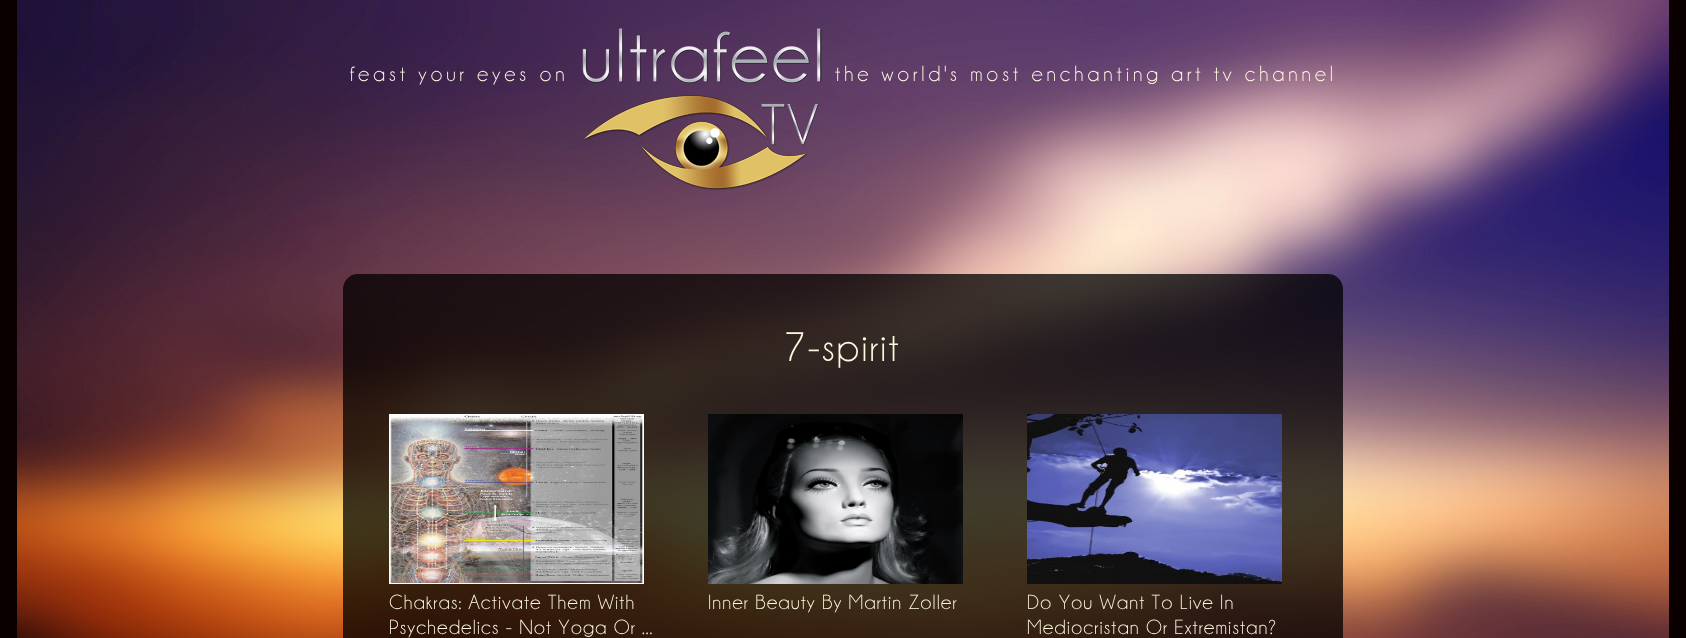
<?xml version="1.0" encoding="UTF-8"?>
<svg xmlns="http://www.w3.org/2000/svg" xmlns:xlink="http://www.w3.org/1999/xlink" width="1686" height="638">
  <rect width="100%" height="100%" fill="#0a0000" />
  <image x="17" y="0" width="1652" height="638" xlink:href="image1.png" />
  <image x="582" y="28" width="240" height="162" xlink:href="image2.png" />
  <image x="343" y="274" width="1000" height="364" xlink:href="image3.png" />
  <image x="389" y="414" width="255" height="170" xlink:href="image4.png" />
  <image x="708" y="414" width="255" height="170" xlink:href="image5.png" />
  <image x="1027" y="414" width="255" height="170" xlink:href="image6.png" />
  <text x="350" y="81" style="font-family: 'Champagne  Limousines'; font-size: 22px; letter-spacing: 3.85px; fill: #fefae1">feast your eyes on</text>
  <text x="835" y="81" style="font-family: 'Champagne  Limousines'; font-size: 22px; letter-spacing: 3.85px; fill: #fefae1">the world's most enchanting art tv channel</text>
  <text x="784" y="361" style="font-family: 'Champagne  Limousines'; font-size: 41.5px; letter-spacing: 2px; fill: #fefae1">7-spirit</text>
  <text x="389" y="609" style="font-family: 'Champagne  Limousines'; font-size: 20.75px; letter-spacing: 1.05px; fill: #fefae1">Chakras: Activate Them With</text>
  <text x="389" y="634" style="font-family: 'Champagne  Limousines'; font-size: 20.75px; letter-spacing: 1.05px; fill: #fefae1">Psychedelics - Not Yoga Or ...</text>
  <text x="708" y="609" style="font-family: 'Champagne  Limousines'; font-size: 20.75px; letter-spacing: 1.05px; fill: #fefae1">Inner Beauty By Martin Zoller</text>
  <text x="1027" y="609" style="font-family: 'Champagne  Limousines'; font-size: 20.75px; letter-spacing: 1.05px; fill: #fefae1">Do You Want To Live In</text>
  <text x="1027" y="634" style="font-family: 'Champagne  Limousines'; font-size: 20.75px; letter-spacing: 1.05px; fill: #fefae1">Mediocristan Or Extremistan?</text>
</svg>
